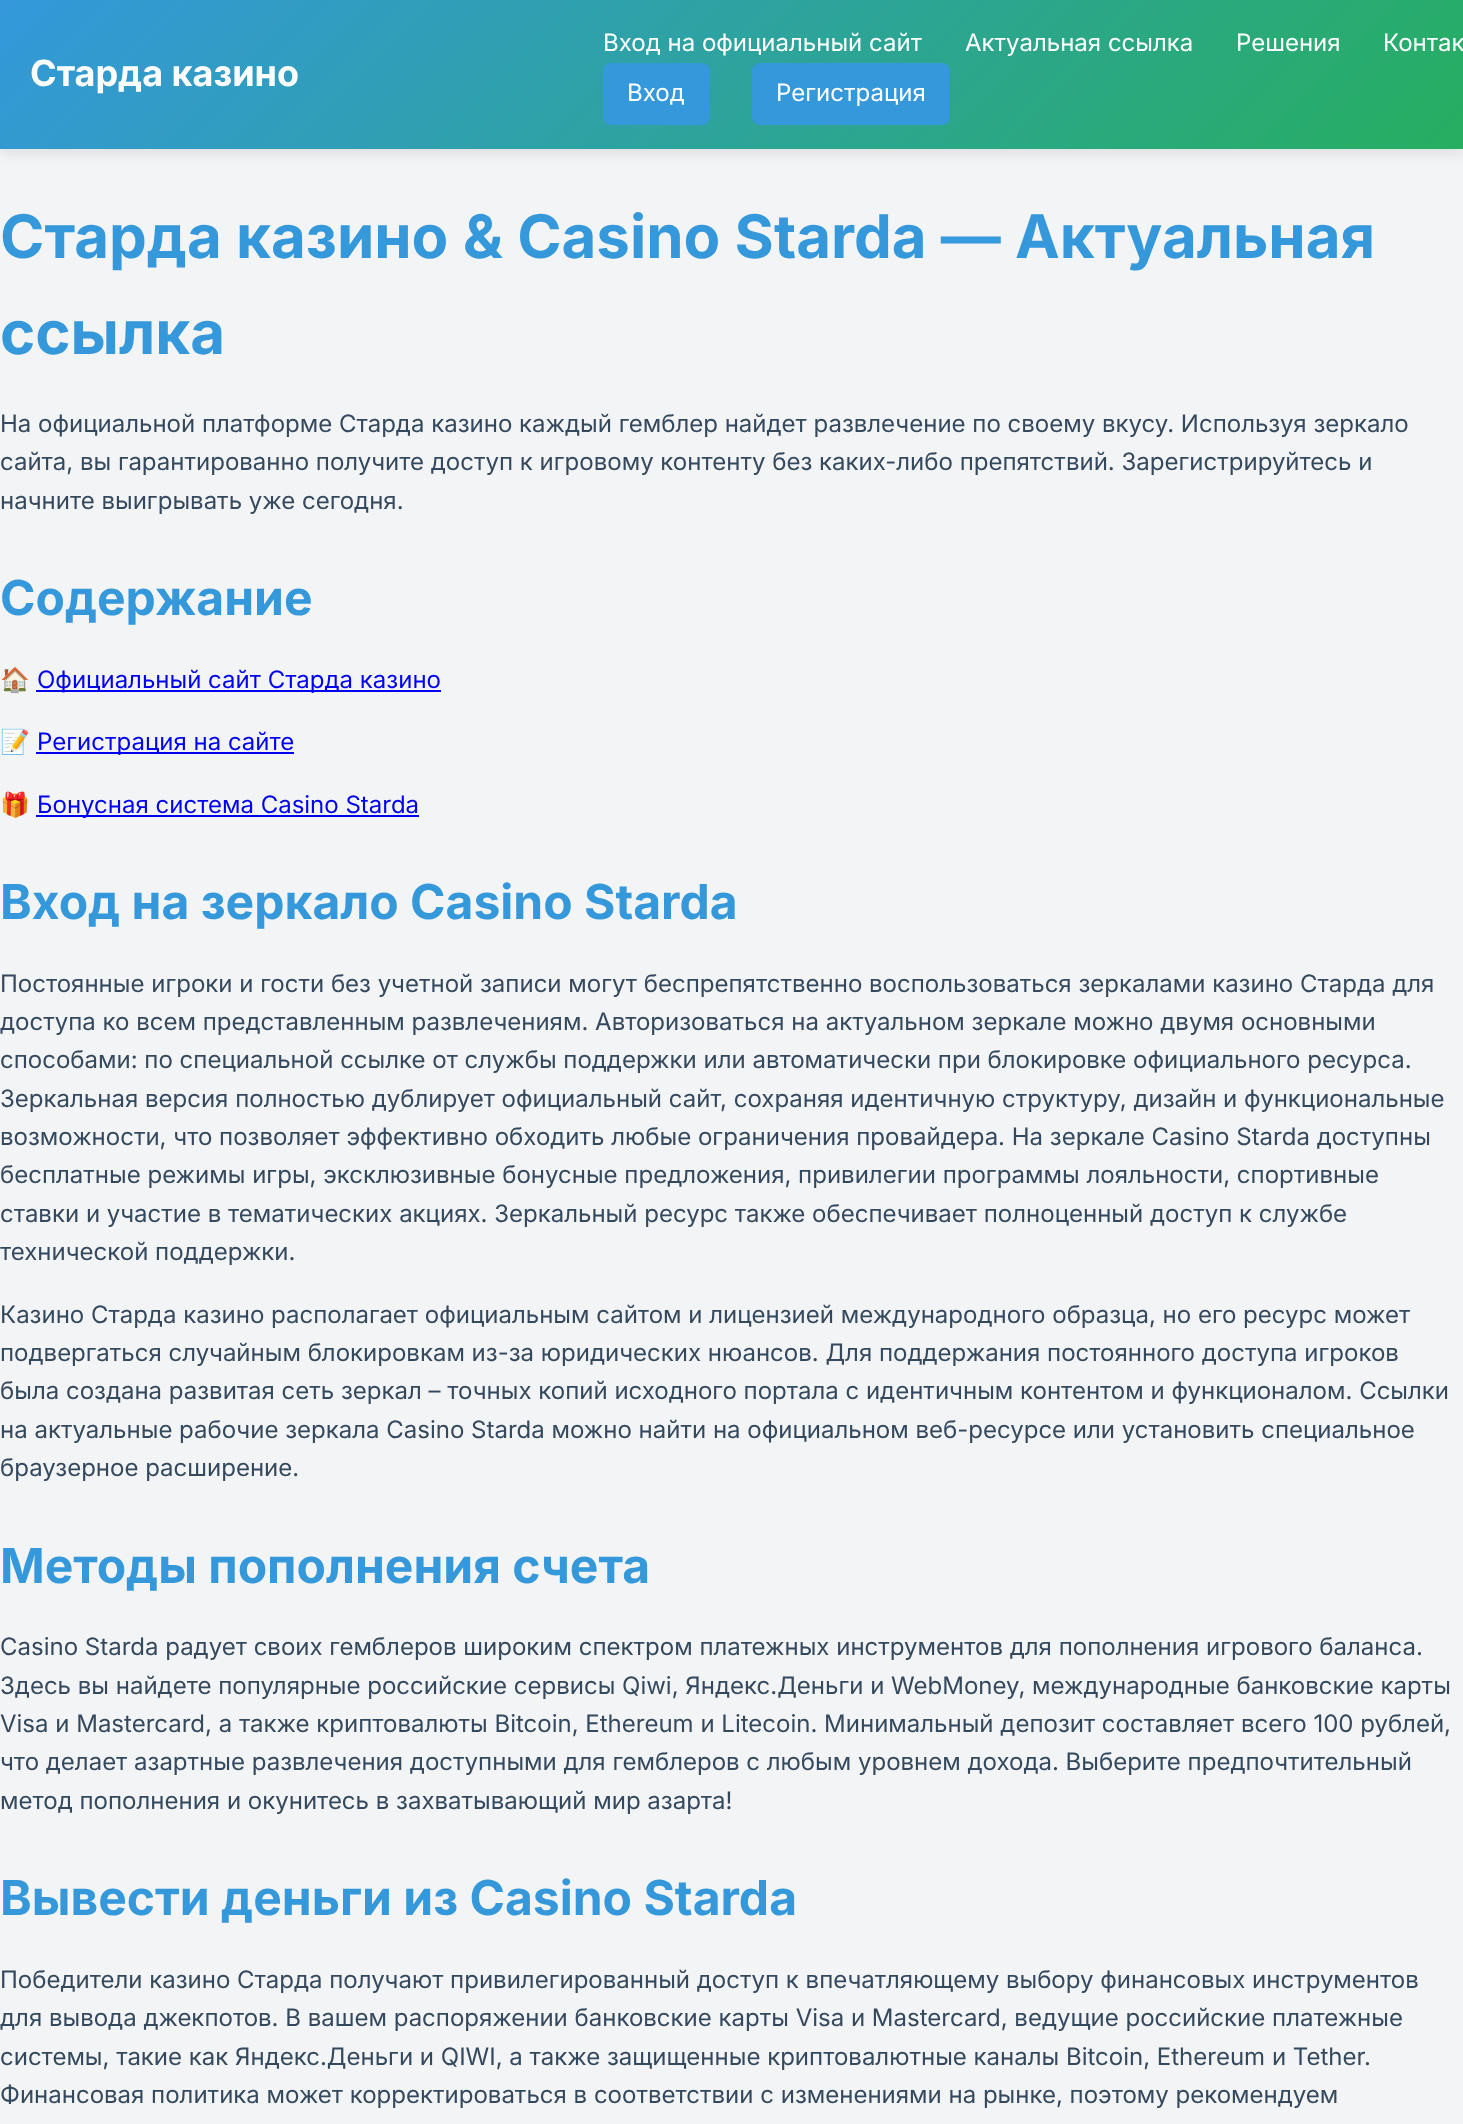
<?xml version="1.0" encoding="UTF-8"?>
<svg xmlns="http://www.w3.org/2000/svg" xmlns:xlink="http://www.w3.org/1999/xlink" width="1463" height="2124">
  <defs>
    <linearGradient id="g1" gradientUnits="userSpaceOnUse" x1="329" y1="-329" x2="1135" y2="477"><stop offset="0" stop-color="#3498db" /><stop offset="1" stop-color="#27ae60" /></linearGradient>
  </defs>
  <rect width="100%" height="100%" fill="#f3f4f6" />
  <rect y="3" width="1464" height="149" fill="#000000" fill-opacity="0.1" filter="blur(7.5px)" />
  <rect width="1463" height="149" fill="url(#g1)" />
  <rect x="603" y="63" width="107" height="62" rx="8" fill="#3498db" />
  <rect x="752" y="63" width="198" height="62" rx="8" fill="#3498db" />
  <rect x="36" y="690" width="405" height="2" fill="#0000ee" />
  <rect x="36" y="752" width="258" height="2" fill="#0000ee" />
  <rect x="36" y="815" width="383" height="2" fill="#0000ee" />
  <text x="30" y="86" style="font-family: Inter; font-size: 36px; font-weight: bold; fill: #ffffff">Старда казино</text>
  <text x="603" y="51" style="font-family: Inter; font-size: 24px; fill: #ffffff">Вход на официальный сайт</text>
  <text x="965" y="51" style="font-family: Inter; font-size: 24px; fill: #ffffff">Актуальная ссылка</text>
  <text x="1236" y="51" style="font-family: Inter; font-size: 24px; fill: #ffffff">Решения</text>
  <text x="1383" y="51" style="font-family: Inter; font-size: 24px; fill: #ffffff">Контак</text>
  <text x="627" y="101" style="font-family: Inter; font-size: 24px; fill: #ffffff">Вход</text>
  <text x="776" y="101" style="font-family: Inter; font-size: 24px; fill: #ffffff">Регистрация</text>
  <text x="0" y="258" style="font-family: Inter; font-size: 60px; font-weight: bold; fill: #3498db">Старда казино &amp; Casino Starda — Актуальная</text>
  <text x="0" y="354" style="font-family: Inter; font-size: 60px; font-weight: bold; fill: #3498db">ссылка</text>
  <text x="0" y="432" style="font-family: Inter; font-size: 24px; fill: #34495e">На официальной платформе Старда казино каждый гемблер найдет развлечение по своему вкусу. Используя зеркало</text>
  <text x="0" y="470" style="font-family: Inter; font-size: 24px; fill: #34495e">сайта, вы гарантированно получите доступ к игровому контенту без каких-либо препятствий. Зарегистрируйтесь и</text>
  <text x="0" y="509" style="font-family: Inter; font-size: 24px; fill: #34495e">начните выигрывать уже сегодня.</text>
  <text x="0" y="615" style="font-family: Inter; font-size: 48px; font-weight: bold; fill: #3498db">Содержание</text>
  <text x="0" y="688" style="font-family: Noto Color Emoji; font-size: 24px; fill: #34495e">🏠</text>
  <text x="37" y="688" style="font-family: Inter; font-size: 24px; fill: #0000ee">Официальный сайт Старда казино</text>
  <text x="0" y="750" style="font-family: Noto Color Emoji; font-size: 24px; fill: #34495e">📝</text>
  <text x="37" y="750" style="font-family: Inter; font-size: 24px; fill: #0000ee">Регистрация на сайте</text>
  <text x="0" y="813" style="font-family: Noto Color Emoji; font-size: 24px; fill: #34495e">🎁</text>
  <text x="37" y="813" style="font-family: Inter; font-size: 24px; fill: #0000ee">Бонусная система Casino Starda</text>
  <text x="0" y="919" style="font-family: Inter; font-size: 48px; font-weight: bold; fill: #3498db">Вход на зеркало Casino Starda</text>
  <text x="0" y="992" style="font-family: Inter; font-size: 24px; fill: #34495e">Постоянные игроки и гости без учетной записи могут беспрепятственно воспользоваться зеркалами казино Старда для</text>
  <text x="0" y="1030" style="font-family: Inter; font-size: 24px; fill: #34495e">доступа ко всем представленным развлечениям. Авторизоваться на актуальном зеркале можно двумя основными</text>
  <text x="0" y="1068" style="font-family: Inter; font-size: 24px; fill: #34495e">способами: по специальной ссылке от службы поддержки или автоматически при блокировке официального ресурса.</text>
  <text x="0" y="1107" style="font-family: Inter; font-size: 24px; fill: #34495e">Зеркальная версия полностью дублирует официальный сайт, сохраняя идентичную структуру, дизайн и функциональные</text>
  <text x="0" y="1145" style="font-family: Inter; font-size: 24px; fill: #34495e">возможности, что позволяет эффективно обходить любые ограничения провайдера. На зеркале Casino Starda доступны</text>
  <text x="0" y="1183" style="font-family: Inter; font-size: 24px; fill: #34495e">бесплатные режимы игры, эксклюзивные бонусные предложения, привилегии программы лояльности, спортивные</text>
  <text x="0" y="1222" style="font-family: Inter; font-size: 24px; fill: #34495e">ставки и участие в тематических акциях. Зеркальный ресурс также обеспечивает полноценный доступ к службе</text>
  <text x="0" y="1260" style="font-family: Inter; font-size: 24px; fill: #34495e">технической поддержки.</text>
  <text x="0" y="1323" style="font-family: Inter; font-size: 24px; fill: #34495e">Казино Старда казино располагает официальным сайтом и лицензией международного образца, но его ресурс может</text>
  <text x="0" y="1361" style="font-family: Inter; font-size: 24px; fill: #34495e">подвергаться случайным блокировкам из-за юридических нюансов. Для поддержания постоянного доступа игроков</text>
  <text x="0" y="1399" style="font-family: Inter; font-size: 24px; fill: #34495e">была создана развитая сеть зеркал – точных копий исходного портала с идентичным контентом и функционалом. Ссылки</text>
  <text x="0" y="1438" style="font-family: Inter; font-size: 24px; fill: #34495e">на актуальные рабочие зеркала Casino Starda можно найти на официальном веб-ресурсе или установить специальное</text>
  <text x="0" y="1476" style="font-family: Inter; font-size: 24px; fill: #34495e">браузерное расширение.</text>
  <text x="0" y="1583" style="font-family: Inter; font-size: 48px; font-weight: bold; fill: #3498db">Методы пополнения счета</text>
  <text x="0" y="1655" style="font-family: Inter; font-size: 24px; fill: #34495e">Casino Starda радует своих гемблеров широким спектром платежных инструментов для пополнения игрового баланса.</text>
  <text x="0" y="1694" style="font-family: Inter; font-size: 24px; fill: #34495e">Здесь вы найдете популярные российские сервисы Qiwi, Яндекс.Деньги и WebMoney, международные банковские карты</text>
  <text x="0" y="1732" style="font-family: Inter; font-size: 24px; fill: #34495e">Visa и Mastercard, а также криптовалюты Bitcoin, Ethereum и Litecoin. Минимальный депозит составляет всего 100 рублей,</text>
  <text x="0" y="1770" style="font-family: Inter; font-size: 24px; fill: #34495e">что делает азартные развлечения доступными для гемблеров с любым уровнем дохода. Выберите предпочтительный</text>
  <text x="0" y="1809" style="font-family: Inter; font-size: 24px; fill: #34495e">метод пополнения и окунитесь в захватывающий мир азарта!</text>
  <text x="0" y="1915" style="font-family: Inter; font-size: 48px; font-weight: bold; fill: #3498db">Вывести деньги из Casino Starda</text>
  <text x="0" y="1988" style="font-family: Inter; font-size: 24px; fill: #34495e">Победители казино Старда получают привилегированный доступ к впечатляющему выбору финансовых инструментов</text>
  <text x="0" y="2026" style="font-family: Inter; font-size: 24px; fill: #34495e">для вывода джекпотов. В вашем распоряжении банковские карты Visa и Mastercard, ведущие российские платежные</text>
  <text x="0" y="2065" style="font-family: Inter; font-size: 24px; fill: #34495e">системы, такие как Яндекс.Деньги и QIWI, а также защищенные криптовалютные каналы Bitcoin, Ethereum и Tether.</text>
  <text x="0" y="2103" style="font-family: Inter; font-size: 24px; fill: #34495e">Финансовая политика может корректироваться в соответствии с изменениями на рынке, поэтому рекомендуем</text>
</svg>
